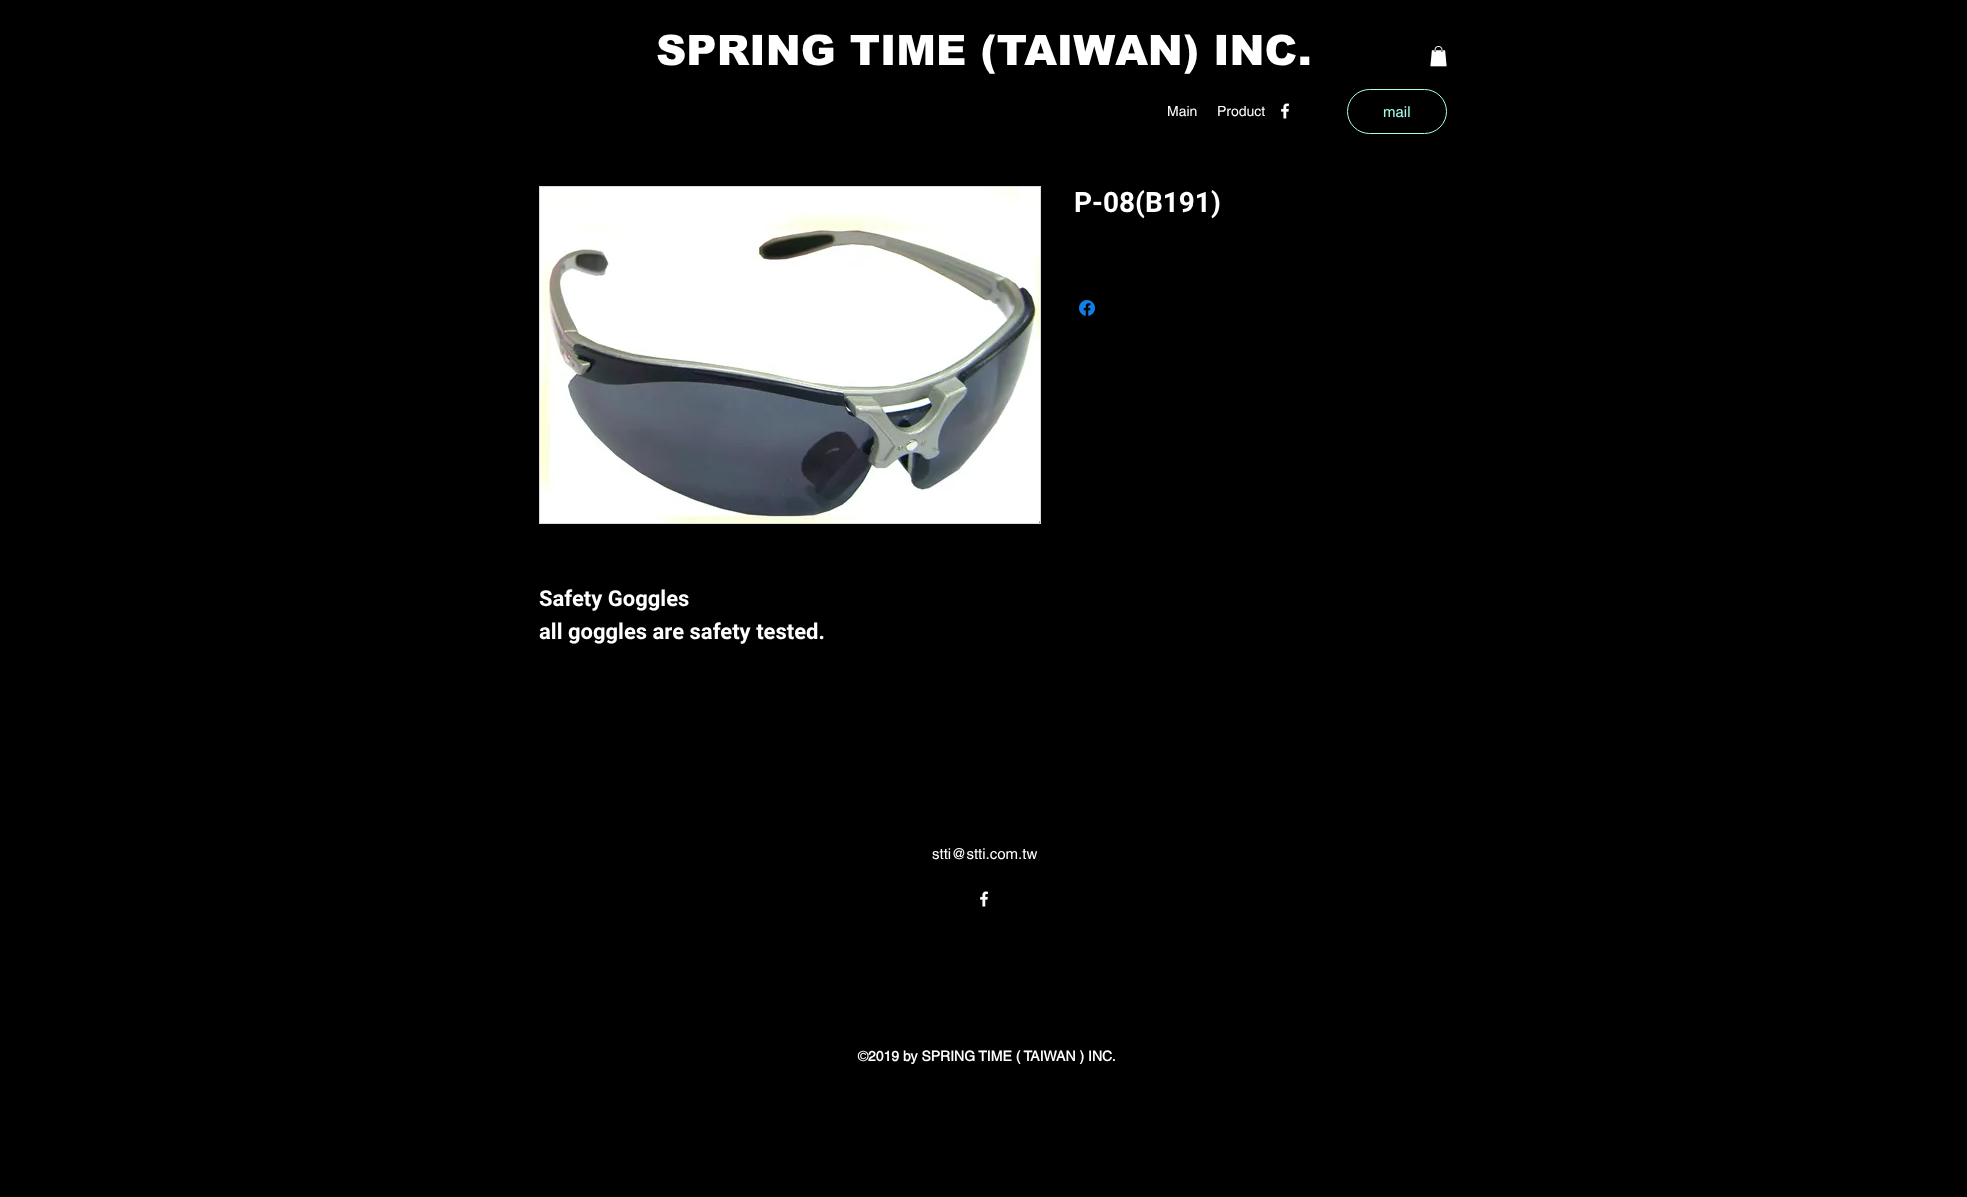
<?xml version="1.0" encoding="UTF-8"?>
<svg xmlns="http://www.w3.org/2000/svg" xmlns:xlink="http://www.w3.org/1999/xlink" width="1967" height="1197">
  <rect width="100%" height="100%" fill="#000000" />
  <image x="1430" y="46" width="17" height="21" xlink:href="image1.png" />
  <image x="1281" y="103" width="9" height="16" xlink:href="image2.png" />
  <rect x="1347.5" y="89.5" width="99" height="44" rx="22" fill="none" stroke="#a5ffee" />
  <image x="1079" y="300" width="16" height="16" xlink:href="image3.png" />
  <rect x="539.5" y="186.5" width="501" height="337" fill="none" stroke="#dbdbdb" />
  <image x="540" y="187" width="500" height="336" xlink:href="image4.png" />
  <image x="980" y="891" width="9" height="16" xlink:href="image2.png" />
  <text x="656" y="65" style="font-family: arial; font-size: 42px; font-weight: 900; fill: #ffffff">SPRING TIME (TAIWAN) INC.</text>
  <text x="1167" y="116" style="font-family: helvetica; font-size: 14px; fill: #ffffff">Main</text>
  <text x="1217" y="116" style="font-family: helvetica; font-size: 14px; fill: #ffffff">Product</text>
  <text x="1383" y="117" style="font-family: helvetica; font-size: 15px; fill: #a5ffee">mail</text>
  <text x="1074" y="212" style="font-family: Roboto; font-size: 28px; font-weight: bold; fill: #ffffff">P-08(B191)</text>
  <text x="539" y="606" style="font-family: Roboto; font-size: 22px; font-weight: bold; fill: #ffffff">Safety Goggles</text>
  <text x="539" y="639" style="font-family: Roboto; font-size: 22px; font-weight: bold; fill: #ffffff">all goggles are safety tested.</text>
  <text x="932" y="859" style="font-family: helvetica; font-size: 15px; fill: #ffffff">stti@stti.com.tw</text>
  <text x="858" y="1061" style="font-family: helvetica; font-size: 14px; fill: #ffffff">©</text>
  <text x="868" y="1061" style="font-family: helvetica; font-size: 14px; font-weight: bold; fill: #ffffff">2019 by SPRING TIME ( TAIWAN ) INC.</text>
</svg>
